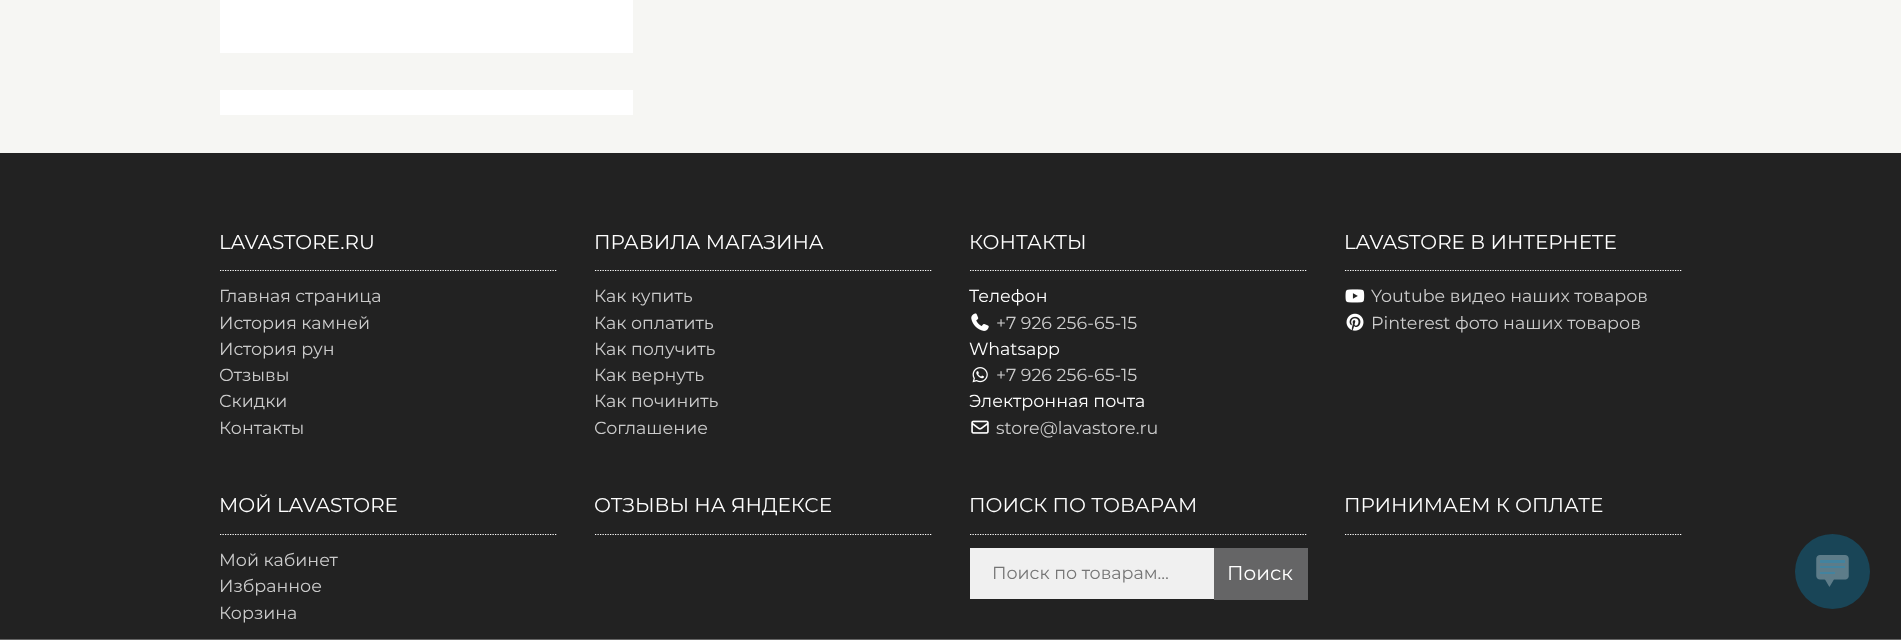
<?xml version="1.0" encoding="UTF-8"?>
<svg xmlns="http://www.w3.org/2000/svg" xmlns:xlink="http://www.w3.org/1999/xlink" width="1901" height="640">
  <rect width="100%" height="100%" fill="#f6f6f3" />
  <rect x="220" width="413" height="53" fill="#ffffff" />
  <rect x="220" y="90" width="413" height="25" fill="#ffffff" />
  <rect y="153" width="1901" height="486" fill="#222222" />
  <path d="M 220 270.5 h 337.5" fill="none" stroke="#ffffff" stroke-width="1.2" stroke-dasharray="1.25 1.25" />
  <path d="M 220 534.5 h 337.5" fill="none" stroke="#ffffff" stroke-width="1.2" stroke-dasharray="1.25 1.25" />
  <path d="M 595 270.5 h 337.5" fill="none" stroke="#ffffff" stroke-width="1.2" stroke-dasharray="1.25 1.25" />
  <path d="M 595 534.5 h 337.5" fill="none" stroke="#ffffff" stroke-width="1.2" stroke-dasharray="1.25 1.25" />
  <path d="M 970 270.5 h 337.5" fill="none" stroke="#ffffff" stroke-width="1.2" stroke-dasharray="1.25 1.25" />
  <image x="971" y="313" width="18" height="18" xlink:href="image1.png" />
  <image x="972" y="367" width="16" height="16" xlink:href="image2.png" />
  <image x="971" y="420" width="18" height="14" xlink:href="image3.png" />
  <path d="M 970 534.5 h 337.5" fill="none" stroke="#ffffff" stroke-width="1.2" stroke-dasharray="1.25 1.25" />
  <rect x="970" y="548" width="244" height="51" fill="#f0f0f0" />
  <rect x="1214" y="548" width="94" height="52" fill="#656566" />
  <path d="M 1345 270.5 h 337.5" fill="none" stroke="#ffffff" stroke-width="1.2" stroke-dasharray="1.25 1.25" />
  <image x="1345" y="289" width="20" height="14" xlink:href="image4.png" />
  <image x="1346" y="313" width="18" height="18" xlink:href="image5.png" />
  <path d="M 1345 534.5 h 337.5" fill="none" stroke="#ffffff" stroke-width="1.2" stroke-dasharray="1.25 1.25" />
  <rect y="639" width="1901" height="1" fill="#656565" />
  <circle cx="1832.5" cy="571.5" r="37.5" fill="#194557" />
  <image x="1816" y="555" width="33" height="32" xlink:href="image6.png" />
  <text x="219" y="249" style="font-family: Montserrat; font-size: 20px; fill: #ffffff">LAVASTORE.RU</text>
  <text x="219" y="302" style="font-family: Montserrat; font-size: 17.5px; fill: #cccccc">Главная страница</text>
  <text x="219" y="329" style="font-family: Montserrat; font-size: 17.5px; fill: #cccccc">История камней</text>
  <text x="219" y="355" style="font-family: Montserrat; font-size: 17.5px; fill: #cccccc">История рун</text>
  <text x="219" y="381" style="font-family: Montserrat; font-size: 17.5px; fill: #cccccc">Отзывы</text>
  <text x="219" y="407" style="font-family: Montserrat; font-size: 17.5px; fill: #cccccc">Скидки</text>
  <text x="219" y="434" style="font-family: Montserrat; font-size: 17.5px; fill: #cccccc">Контакты</text>
  <text x="219" y="512" style="font-family: Montserrat; font-size: 20px; fill: #ffffff">МОЙ LAVASTORE</text>
  <text x="219" y="566" style="font-family: Montserrat; font-size: 17.5px; fill: #cccccc">Мой кабинет</text>
  <text x="219" y="592" style="font-family: Montserrat; font-size: 17.5px; fill: #cccccc">Избранное</text>
  <text x="219" y="619" style="font-family: Montserrat; font-size: 17.5px; fill: #cccccc">Корзина</text>
  <text x="594" y="249" style="font-family: Montserrat; font-size: 20px; fill: #ffffff">ПРАВИЛА МАГАЗИНА</text>
  <text x="594" y="302" style="font-family: Montserrat; font-size: 17.5px; fill: #cccccc">Как купить</text>
  <text x="594" y="329" style="font-family: Montserrat; font-size: 17.5px; fill: #cccccc">Как оплатить</text>
  <text x="594" y="355" style="font-family: Montserrat; font-size: 17.5px; fill: #cccccc">Как получить</text>
  <text x="594" y="381" style="font-family: Montserrat; font-size: 17.5px; fill: #cccccc">Как вернуть</text>
  <text x="594" y="407" style="font-family: Montserrat; font-size: 17.5px; fill: #cccccc">Как починить</text>
  <text x="594" y="434" style="font-family: Montserrat; font-size: 17.5px; fill: #cccccc">Соглашение</text>
  <text x="594" y="512" style="font-family: Montserrat; font-size: 20px; fill: #ffffff">ОТЗЫВЫ НА ЯНДЕКСЕ</text>
  <text x="969" y="249" style="font-family: Montserrat; font-size: 20px; fill: #ffffff">КОНТАКТЫ</text>
  <text x="969" y="302" style="font-family: Montserrat; font-size: 17.5px; fill: #ffffff">Телефон</text>
  <text x="996" y="329" style="font-family: Montserrat; font-size: 17.5px; fill: #cccccc">+7 926 256-65-15</text>
  <text x="969" y="355" style="font-family: Montserrat; font-size: 17.5px; fill: #ffffff">Whatsapp</text>
  <text x="996" y="381" style="font-family: Montserrat; font-size: 17.5px; fill: #cccccc">+7 926 256-65-15</text>
  <text x="969" y="407" style="font-family: Montserrat; font-size: 17.5px; fill: #ffffff">Электронная почта</text>
  <text x="996" y="434" style="font-family: Montserrat; font-size: 17.5px; fill: #cccccc">store@lavastore.ru</text>
  <text x="969" y="512" style="font-family: Montserrat; font-size: 20px; fill: #ffffff">ПОИСК ПО ТОВАРАМ</text>
  <text x="992" y="579" style="font-family: Montserrat; font-size: 17.5px; fill: #757575">Поиск по товарам…</text>
  <text x="1227" y="580" style="font-family: Montserrat; font-size: 20px; fill: #ffffff">Поиск</text>
  <text x="1344" y="249" style="font-family: Montserrat; font-size: 20px; fill: #ffffff">LAVASTORE В ИНТЕРНЕТЕ</text>
  <text x="1371" y="302" style="font-family: Montserrat; font-size: 17.5px; fill: #cccccc">Youtube видео наших товаров</text>
  <text x="1371" y="329" style="font-family: Montserrat; font-size: 17.5px; fill: #cccccc">Pinterest фото наших товаров</text>
  <text x="1344" y="512" style="font-family: Montserrat; font-size: 20px; fill: #ffffff">ПРИНИМАЕМ К ОПЛАТЕ</text>
</svg>
